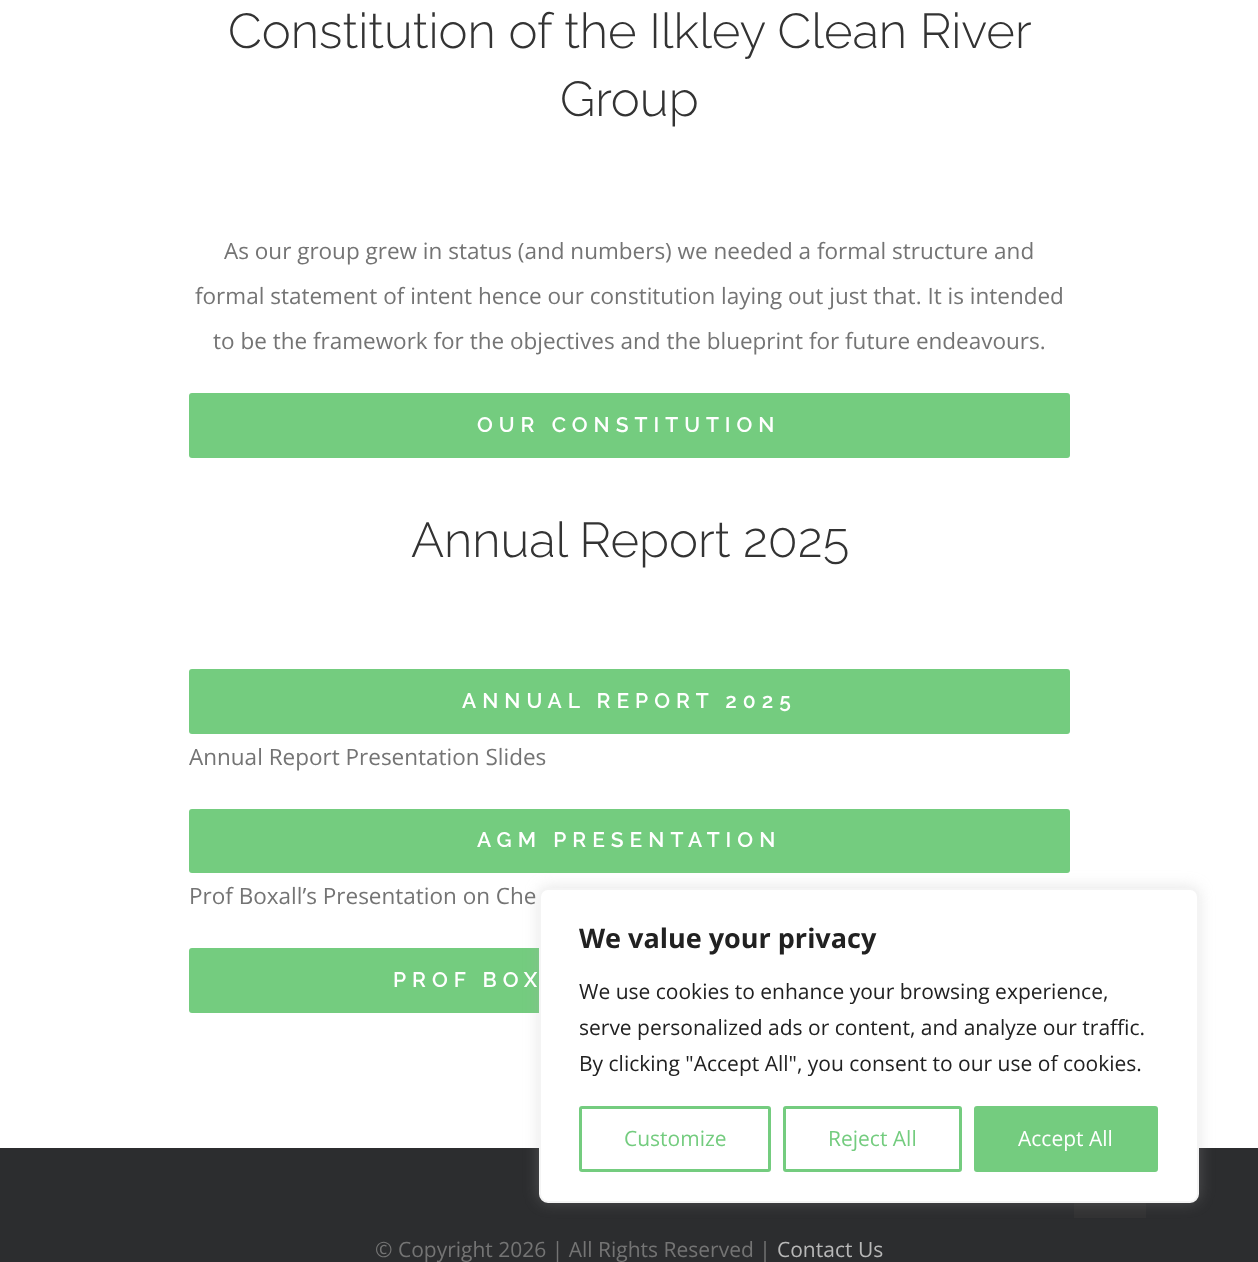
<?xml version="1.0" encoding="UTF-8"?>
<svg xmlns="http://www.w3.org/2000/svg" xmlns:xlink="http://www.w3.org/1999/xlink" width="1258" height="1262">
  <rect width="100%" height="100%" fill="#ffffff" />
  <rect x="189" y="393" width="881" height="65" rx="3" fill="#74cc7f" />
  <rect x="189" y="669" width="881" height="65" rx="3" fill="#74cc7f" />
  <rect x="189" y="809" width="881" height="64" rx="3" fill="#74cc7f" />
  <rect x="189" y="948" width="881" height="65" rx="3" fill="#74cc7f" />
  <rect y="1148" width="1258" height="114" fill="#2c2d2f" />
  <rect x="1074" y="1203" width="72" height="15" fill="#323233" />
  <rect x="539" y="887" width="660" height="315" rx="9" fill="#acabab" fill-opacity="0.3" filter="blur(7.5px)" />
  <rect x="540" y="889" width="658" height="313" rx="8" fill="#ffffff" stroke="#f4f4f4" stroke-width="2" />
  <rect x="580.5" y="1107.5" width="189" height="63" rx="1.5" fill="none" stroke="#74cc7f" stroke-width="3" />
  <rect x="784.5" y="1107.5" width="176" height="63" rx="1.5" fill="none" stroke="#74cc7f" stroke-width="3" />
  <rect x="975.5" y="1107.5" width="181" height="63" rx="1.5" fill="#74cc7f" stroke="#74cc7f" stroke-width="3" />
  <text x="228" y="48" style="font-family: Raleway; font-size: 49px; font-weight: 300; fill: #333333">Constitution of the Ilkley Clean River</text>
  <text x="560" y="116" style="font-family: Raleway; font-size: 49px; font-weight: 300; fill: #333333">Group</text>
  <text x="224" y="259" style="font-family: Open Sans; font-size: 22.5px; fill: #747474">As our group grew in status (and numbers) we needed a formal structure and</text>
  <text x="195" y="304" style="font-family: Open Sans; font-size: 22.5px; fill: #747474">formal statement of intent hence our constitution laying out just that. It is intended</text>
  <text x="213" y="349" style="font-family: Open Sans; font-size: 22.5px; fill: #747474">to be the framework for the objectives and the blueprint for future endeavours.</text>
  <text x="477" y="432" style="font-family: Raleway; font-size: 21px; font-weight: 600; letter-spacing: 6px; fill: #ffffff">OUR CONSTITUTION</text>
  <text x="411" y="557" style="font-family: Raleway; font-size: 49px; font-weight: 300; fill: #333333">Annual Report 2025</text>
  <text x="462" y="708" style="font-family: Raleway; font-size: 21px; font-weight: 600; letter-spacing: 6px; fill: #ffffff">ANNUAL REPORT 2025</text>
  <text x="189" y="765" style="font-family: Open Sans; font-size: 22.5px; fill: #747474">Annual Report Presentation Slides</text>
  <text x="477" y="847" style="font-family: Raleway; font-size: 21px; font-weight: 600; letter-spacing: 6px; fill: #ffffff">AGM PRESENTATION</text>
  <text x="189" y="904" style="font-family: Open Sans; font-size: 22.5px; fill: #747474">Prof Boxall’s Presentation on Che</text>
  <text x="393" y="987" style="font-family: Raleway; font-size: 21px; font-weight: 600; letter-spacing: 6px; fill: #ffffff">PROF BOX</text>
  <text x="375" y="1257" style="font-family: Open Sans; font-size: 21px; fill: #747474">© Copyright 2026 | All Rights Reserved |</text>
  <text x="777" y="1257" style="font-family: Open Sans; font-size: 21px; fill: #b8b8b8">Contact Us</text>
  <text x="579" y="948" style="font-family: Open Sans; font-size: 27px; font-weight: bold; fill: #212121">We value your privacy</text>
  <text x="579" y="999" style="font-family: Open Sans; font-size: 21px; fill: #212121">We use cookies to enhance your browsing experience,</text>
  <text x="579" y="1035" style="font-family: Open Sans; font-size: 21px; fill: #212121">serve personalized ads or content, and analyze our traffic.</text>
  <text x="579" y="1071" style="font-family: Open Sans; font-size: 21px; fill: #212121">By clicking "Accept All", you consent to our use of cookies.</text>
  <text x="624" y="1146" style="font-family: Open Sans; font-size: 21px; fill: #74cc7f">Customize</text>
  <text x="828" y="1146" style="font-family: Open Sans; font-size: 21px; fill: #74cc7f">Reject All</text>
  <text x="1018" y="1146" style="font-family: Open Sans; font-size: 21px; fill: #ffffff">Accept All</text>
</svg>
